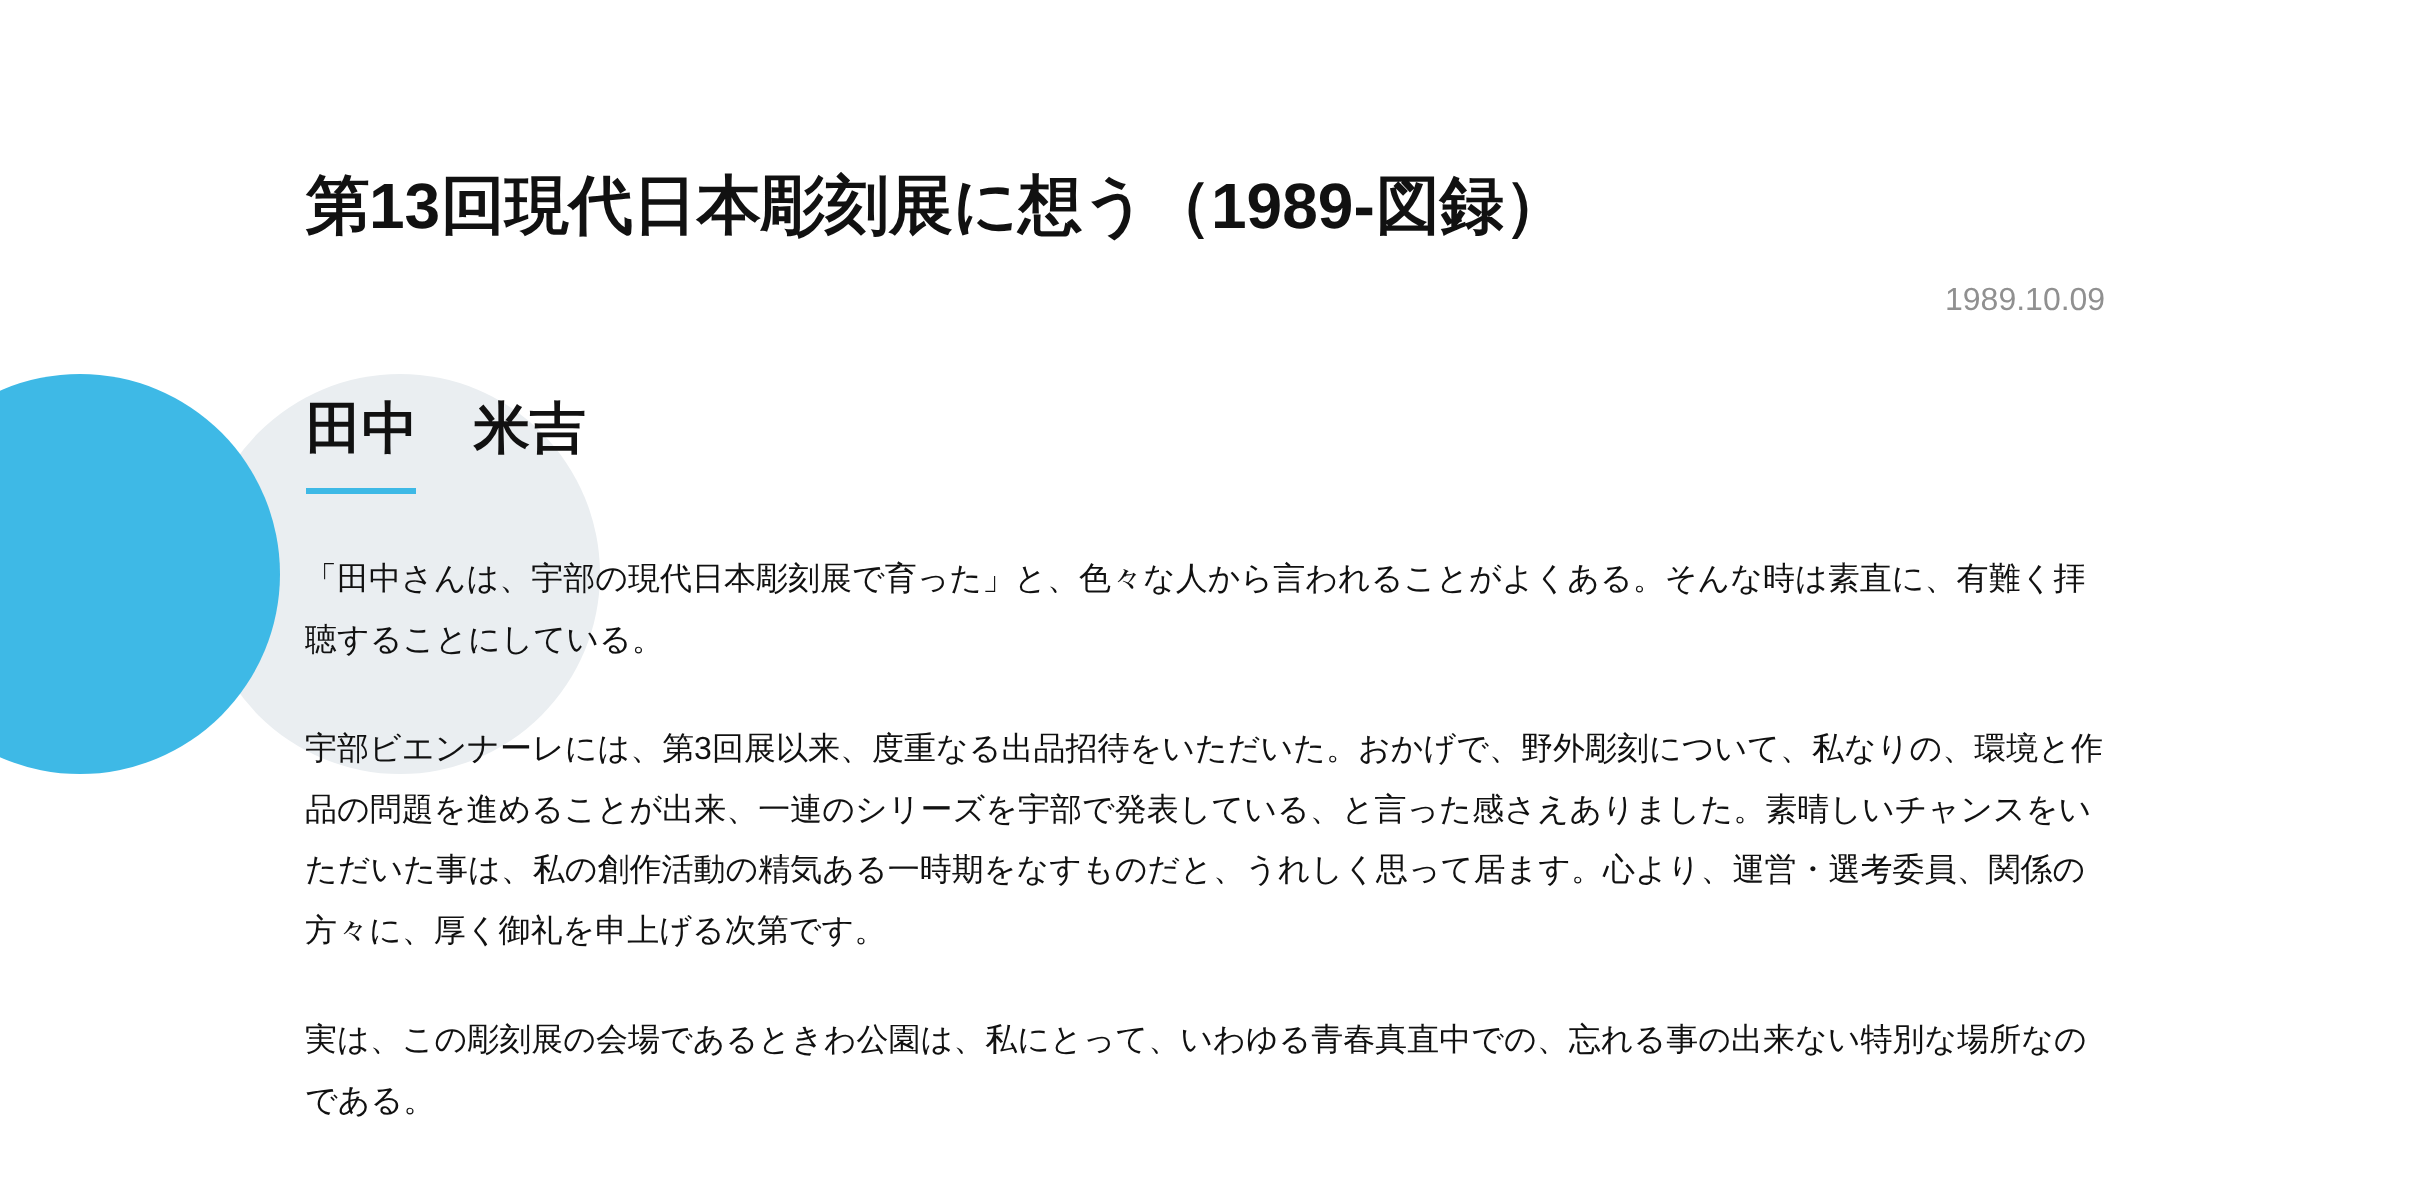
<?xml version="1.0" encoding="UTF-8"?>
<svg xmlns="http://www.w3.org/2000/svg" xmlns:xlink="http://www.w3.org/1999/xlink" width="2409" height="1192">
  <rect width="100%" height="100%" fill="#ffffff" />
  <circle cx="400" cy="574" r="200" fill="#eaeef1" />
  <circle cx="80" cy="574" r="200" fill="#3eb9e6" />
  <rect x="306" y="488" width="110" height="6" fill="#3eb9e6" />
  <text x="305" y="228" style="font-family: WenQuanYi Zen Hei; font-size: 64px; font-weight: bold; fill: #111111">第</text>
  <text x="369" y="228" style="font-family: Liberation Sans; font-size: 64px; font-weight: bold; fill: #111111">13</text>
  <text x="440" y="228" style="font-family: WenQuanYi Zen Hei; font-size: 64px; font-weight: bold; fill: #111111">回現代日本彫刻展に想う（</text>
  <text x="1211" y="228" style="font-family: Liberation Sans; font-size: 64px; font-weight: bold; fill: #111111">1989-</text>
  <text x="1375" y="228" style="font-family: WenQuanYi Zen Hei; font-size: 64px; font-weight: bold; fill: #111111">図録）</text>
  <text x="1945" y="310" style="font-family: Liberation Sans; font-size: 32px; fill: #909090">1989.10.09</text>
  <text x="305" y="448" style="font-family: WenQuanYi Zen Hei; font-size: 56px; font-weight: bold; fill: #111111">田中　米吉</text>
  <text x="305" y="589" style="font-family: WenQuanYi Zen Hei; font-size: 32px; font-weight: 500; fill: #111111">「田中さんは、宇部の現代日本彫刻展で育った」と、色々な人から言われることがよくある。そんな時は素直に、有難く拝</text>
  <text x="305" y="650" style="font-family: WenQuanYi Zen Hei; font-size: 32px; font-weight: 500; fill: #111111">聴することにしている。</text>
  <text x="305" y="759" style="font-family: WenQuanYi Zen Hei; font-size: 32px; font-weight: 500; fill: #111111">宇部ビエンナーレには、第</text>
  <text x="694" y="759" style="font-family: Liberation Sans; font-size: 32px; fill: #111111">3</text>
  <text x="712" y="759" style="font-family: WenQuanYi Zen Hei; font-size: 32px; font-weight: 500; fill: #111111">回展以来、度重なる出品招待をいただいた。おかげで、野外彫刻について、私なりの、環境と作</text>
  <text x="305" y="820" style="font-family: WenQuanYi Zen Hei; font-size: 32px; font-weight: 500; fill: #111111">品の問題を進めることが出来、一連のシリーズを宇部で発表している、と言った感さえありました。素晴しいチャンスをい</text>
  <text x="305" y="880" style="font-family: WenQuanYi Zen Hei; font-size: 32px; font-weight: 500; fill: #111111">ただいた事は、私の創作活動の精気ある一時期をなすものだと、うれしく思って居ます。心より、運営・選考委員、関係の</text>
  <text x="305" y="941" style="font-family: WenQuanYi Zen Hei; font-size: 32px; font-weight: 500; fill: #111111">方々に、厚く御礼を申上げる次第です。</text>
  <text x="305" y="1050" style="font-family: WenQuanYi Zen Hei; font-size: 32px; font-weight: 500; fill: #111111">実は、この彫刻展の会場であるときわ公園は、私にとって、いわゆる青春真直中での、忘れる事の出来ない特別な場所なの</text>
  <text x="305" y="1111" style="font-family: WenQuanYi Zen Hei; font-size: 32px; font-weight: 500; fill: #111111">である。</text>
</svg>
